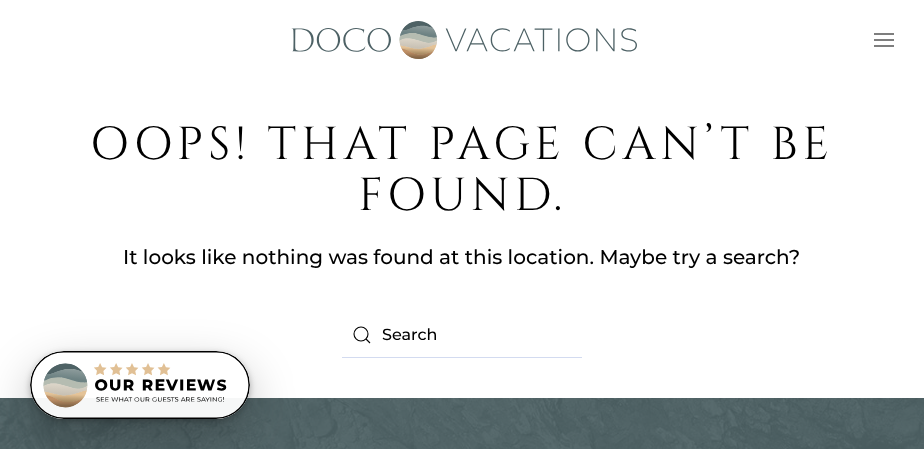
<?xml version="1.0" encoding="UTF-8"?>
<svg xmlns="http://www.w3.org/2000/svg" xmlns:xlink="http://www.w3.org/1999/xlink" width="924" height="449">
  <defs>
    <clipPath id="clip1"><path d="M 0 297 h 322 v 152 h -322 z m 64 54 h 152 c 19 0 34 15 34 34 c 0 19 -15 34 -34 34 h -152 c -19 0 -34 -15 -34 -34 c 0 -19 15 -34 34 -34 z" clip-rule="evenodd" /></clipPath>
    <clipPath id="clip2"><path d="M 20 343 h 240 v 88 h -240 z m 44 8 h 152 c 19 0 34 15 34 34 c 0 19 -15 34 -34 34 h -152 c -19 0 -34 -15 -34 -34 c 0 -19 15 -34 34 -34 z" clip-rule="evenodd" /></clipPath>
  </defs>
  <rect width="100%" height="100%" fill="#ffffff" />
  <image x="291" y="21" width="346" height="38" xlink:href="image1.png" />
  <rect x="874" y="33" width="20" height="2" fill="#7e7e7e" />
  <rect x="874" y="39" width="20" height="2" fill="#7e7e7e" />
  <rect x="874" y="45" width="20" height="2" fill="#7e7e7e" />
  <circle cx="361" cy="334" r="7" fill="none" stroke="#000000" stroke-width="1.1" />
  <path d="M 366 339 l 4 4 z" fill="none" stroke="#000000" stroke-width="1.1" />
  <rect x="342" y="357" width="240" height="1" fill="#d3dbf0" />
  <image x="0" y="398" width="924" height="51" xlink:href="image3.png" />
  <g clip-path="url(#clip1)">
    <rect x="30" y="369" width="220" height="68" rx="34" fill="#000000" fill-opacity="0.25" filter="blur(23.5px)" />
  </g>
  <g clip-path="url(#clip2)">
    <rect x="30" y="353" width="220" height="68" rx="34" fill="#000000" fill-opacity="0.26" filter="blur(3px)" />
  </g>
  <image x="30" y="351" width="220" height="68" xlink:href="image2.png" />
  <text x="90" y="159" style="font-family: Cinzel; font-size: 46.25px; letter-spacing: 5px; fill: #000000">OOPS! THAT PAGE CAN’T BE</text>
  <text x="358" y="210" style="font-family: Cinzel; font-size: 46.25px; letter-spacing: 5px; fill: #000000">FOUND.</text>
  <text x="123" y="264" style="font-family: Montserrat; font-size: 20px; font-weight: 100; fill: #000000">It looks like nothing was found at this location. Maybe try a search?</text>
  <text x="382" y="340" style="font-family: Montserrat; font-size: 16px; font-weight: 100; fill: #000000">Search</text>
</svg>
